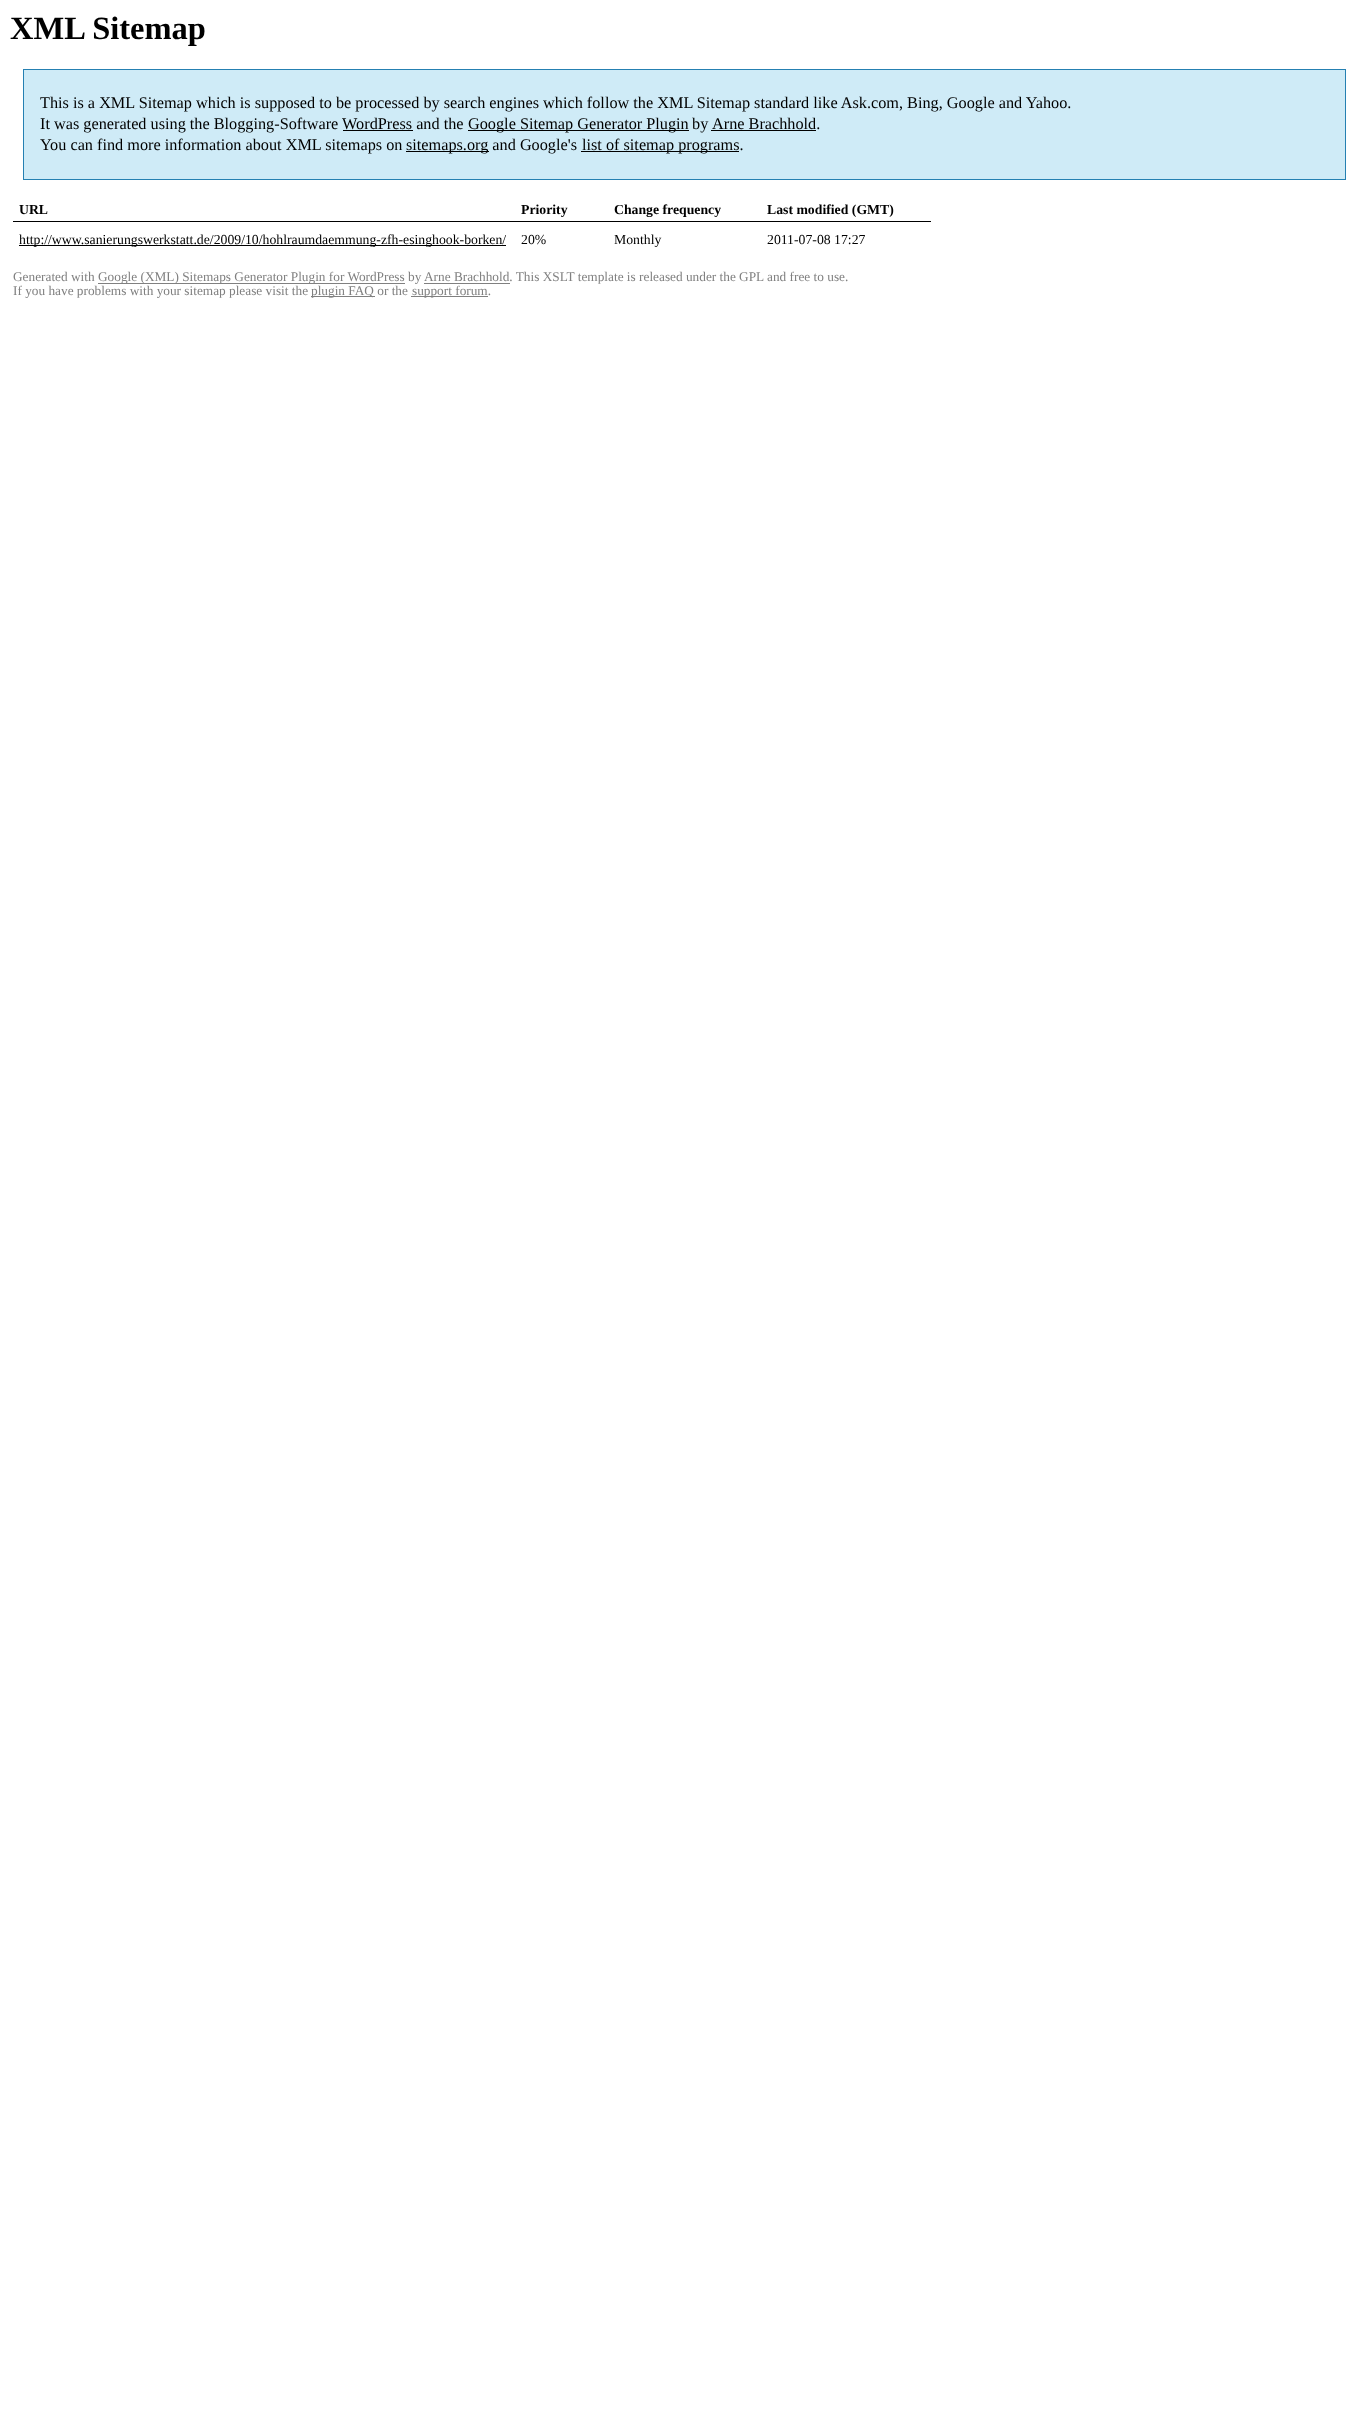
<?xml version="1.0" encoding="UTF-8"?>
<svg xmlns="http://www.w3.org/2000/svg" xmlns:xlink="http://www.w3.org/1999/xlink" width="1368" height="2413">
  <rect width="100%" height="100%" fill="#ffffff" />
  <rect x="23.5" y="69.5" width="1322" height="110" fill="#cfebf7" stroke="#2580b2" />
  <rect x="468" y="130" width="221" height="1" fill="#000000" />
  <rect x="711" y="130" width="105" height="1" fill="#000000" />
  <rect x="343" y="130" width="70" height="1" fill="#000000" />
  <rect x="406" y="151" width="83" height="1" fill="#000000" />
  <rect x="581" y="151" width="158" height="1" fill="#000000" />
  <rect x="13" y="221" width="918" height="1" fill="#000000" />
  <rect x="19" y="245" width="487" height="1" fill="#000000" />
  <rect x="98" y="283" width="307" height="1" fill="#808080" />
  <rect x="424" y="283" width="86" height="1" fill="#808080" />
  <rect x="311" y="296" width="64" height="1" fill="#808080" />
  <rect x="411" y="296" width="77" height="1" fill="#808080" />
  <text x="10" y="39" style="font-family: Liberation Serif; font-size: 32.5px; font-weight: bold; fill: #000000">XML Sitemap</text>
  <text x="40" y="108" style="font-family: Liberation Serif; font-size: 16.25px; fill: #000000">This is a XML Sitemap which is supposed to be processed by search engines which follow the XML Sitemap standard like Ask.com, Bing, Google and Yahoo.</text>
  <text x="40" y="129" style="font-family: Liberation Serif; font-size: 16.25px; fill: #000000">It was generated using the Blogging-Software WordPress and the</text>
  <text x="468" y="129" style="font-family: Liberation Serif; font-size: 16.25px; fill: #000000">Google Sitemap Generator Plugin</text>
  <text x="692" y="129" style="font-family: Liberation Serif; font-size: 16.25px; fill: #000000">by</text>
  <text x="712" y="129" style="font-family: Liberation Serif; font-size: 16.25px; fill: #000000">Arne Brachhold.</text>
  <text x="40" y="150" style="font-family: Liberation Serif; font-size: 16.25px; fill: #000000">You can find more information about XML sitemaps on</text>
  <text x="406" y="150" style="font-family: Liberation Serif; font-size: 16.25px; fill: #000000">sitemaps.org and Google's</text>
  <text x="582" y="150" style="font-family: Liberation Serif; font-size: 16.25px; fill: #000000">list of sitemap programs.</text>
  <text x="19" y="214" style="font-family: Liberation Serif; font-size: 13.75px; font-weight: bold; fill: #000000">URL</text>
  <text x="521" y="214" style="font-family: Liberation Serif; font-size: 13.75px; font-weight: bold; fill: #000000">Priority</text>
  <text x="614" y="214" style="font-family: Liberation Serif; font-size: 13.75px; font-weight: bold; fill: #000000">Change frequency</text>
  <text x="767" y="214" style="font-family: Liberation Serif; font-size: 13.75px; font-weight: bold; fill: #000000">Last modified (GMT)</text>
  <text x="19" y="244" style="font-family: Liberation Serif; font-size: 13.75px; fill: #000000">http://www.sanierungswerkstatt.de/2009/10/hohlraumdaemmung-zfh-esinghook-borken/</text>
  <text x="521" y="244" style="font-family: Liberation Serif; font-size: 13.75px; fill: #000000">20%</text>
  <text x="614" y="244" style="font-family: Liberation Serif; font-size: 13.75px; fill: #000000">Monthly</text>
  <text x="767" y="244" style="font-family: Liberation Serif; font-size: 13.75px; fill: #000000">2011-07-08 17:27</text>
  <text x="13" y="281" style="font-family: Liberation Serif; font-size: 13.3px; fill: #808080">Generated with</text>
  <text x="98" y="281" style="font-family: Liberation Serif; font-size: 13.3px; fill: #808080">Google (XML) Sitemaps Generator Plugin for WordPress</text>
  <text x="408" y="281" style="font-family: Liberation Serif; font-size: 13.3px; fill: #808080">by</text>
  <text x="424" y="281" style="font-family: Liberation Serif; font-size: 13.3px; fill: #808080">Arne Brachhold. This XSLT template is released under the GPL and free to use.</text>
  <text x="13" y="295" style="font-family: Liberation Serif; font-size: 13.3px; fill: #808080">If you have problems with your sitemap please visit the</text>
  <text x="311" y="295" style="font-family: Liberation Serif; font-size: 13.3px; fill: #808080">plugin FAQ or the</text>
  <text x="412" y="295" style="font-family: Liberation Serif; font-size: 13.3px; fill: #808080">support forum.</text>
</svg>
